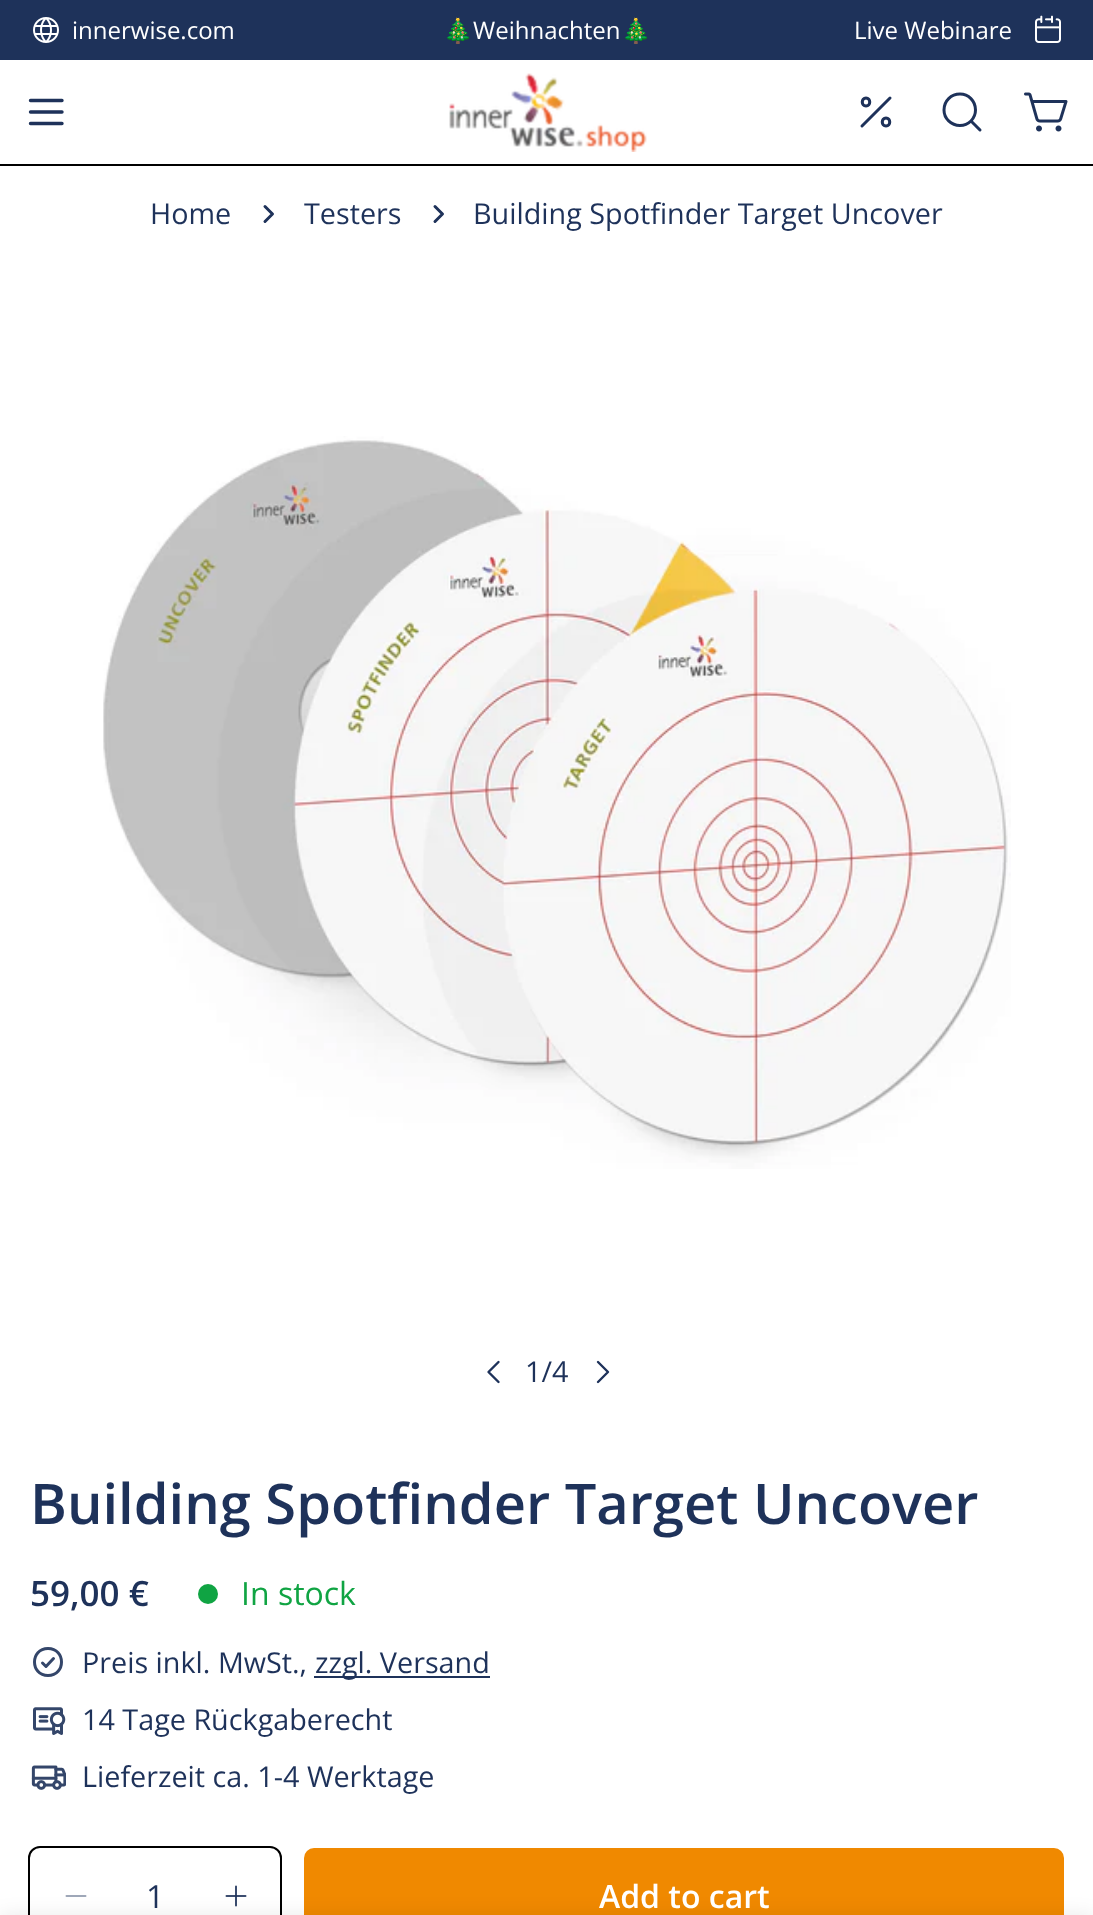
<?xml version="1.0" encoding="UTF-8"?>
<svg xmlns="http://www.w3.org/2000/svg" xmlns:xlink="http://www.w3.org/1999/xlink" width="1093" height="1915">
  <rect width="100%" height="100%" fill="#ffffff" />
  <rect width="1093" height="60" fill="#1e325a" />
  <image x="33" y="17" width="26" height="26" xlink:href="image1.png" />
  <image x="1035" y="15" width="26" height="28" xlink:href="image2.png" />
  <rect y="164" width="1093" height="2" fill="#000000" />
  <path d="M 30.5 112 h 31.5 m -31.5 -11.5 h 31.5 m -31.5 23 h 31.5" fill="none" stroke="#1e325a" stroke-width="3.4" stroke-linecap="round" stroke-linejoin="round" />
  <image x="449" y="73" width="198" height="79" xlink:href="image3.png" />
  <path d="M 886 126 c -5 0 -5 -8 0 -8 c 5 0 5 8 0 8 m -20 -20 c -5 0 -5 -8 0 -8 c 5 0 5 8 0 8 m 24 -8 l -28 28" fill="none" stroke="#1e325a" stroke-width="3" stroke-linecap="round" stroke-linejoin="round" />
  <path d="M 960 125.5 c 8.5 0 15.5 -7 15.5 -15.5 c 0 -9 -7 -16 -15.5 -16 c -9 0 -16 7 -16 16 c 0 8.5 7 15.5 16 15.5 z m 11 -4.5 l 9 9" fill="none" stroke="#1e325a" stroke-width="3" stroke-linecap="round" stroke-linejoin="round" />
  <image x="1024" y="92" width="44" height="40" xlink:href="image4.png" />
  <path d="M 265 206.5 l 7.5 7.5 l -7.5 7.5" fill="none" stroke="#1e325a" stroke-width="3" stroke-linecap="round" stroke-linejoin="round" />
  <path d="M 435 206.5 l 7.5 7.5 l -7.5 7.5" fill="none" stroke="#1e325a" stroke-width="3" stroke-linecap="round" stroke-linejoin="round" />
  <image x="103" y="436" width="908" height="733" xlink:href="image5.png" />
  <path d="M 498.5 1382 l -10 -10 l 10 -10" fill="none" stroke="#1e325a" stroke-width="2.4" stroke-linecap="round" stroke-linejoin="round" />
  <path d="M 598 1362 l 10 10 l -10 10" fill="none" stroke="#1e325a" stroke-width="2.4" stroke-linecap="round" stroke-linejoin="round" />
  <circle cx="208" cy="1594" r="10" fill="#10a443" />
  <path d="M 42.5 1663 l 3.5 3.5 l 7.5 -8 m -5.5 17 c 18 0 18 -27 0 -27 c -18 0 -18 27 0 27 z" fill="none" stroke="#34466a" stroke-width="3" stroke-linecap="round" stroke-linejoin="round" />
  <rect x="314" y="1676" width="176" height="2" fill="#1e325a" />
  <image x="33" y="1707" width="33" height="28" xlink:href="image6.png" />
  <image x="31" y="1765" width="35" height="25" xlink:href="image7.png" />
  <rect x="29" y="1847" width="252" height="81" rx="11" fill="none" stroke="#000000" stroke-width="2" />
  <image x="65" y="1895" width="22" height="2" xlink:href="image8.png" />
  <image x="225" y="1885" width="22" height="22" xlink:href="image9.png" />
  <rect x="304" y="1848" width="760" height="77" rx="10" fill="#f08900" />
  <rect y="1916" width="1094" height="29" fill="#000000" fill-opacity="0.09" filter="blur(10px)" />
  <text x="72" y="39" style="font-family: Open Sans; font-size: 24px; fill: #ffffff">innerwise.com</text>
  <text x="443" y="39" style="font-family: Noto Color Emoji; font-size: 24px; fill: #ffffff">🎄</text>
  <text x="473" y="39" style="font-family: Open Sans; font-size: 24px; fill: #ffffff">Weihnachten</text>
  <text x="621" y="39" style="font-family: Noto Color Emoji; font-size: 24px; fill: #ffffff">🎄</text>
  <text x="854" y="39" style="font-family: Open Sans; font-size: 24px; fill: #ffffff">Live Webinare</text>
  <text x="150" y="224" style="font-family: Open Sans; font-size: 28.75px; fill: #1e325a">Home</text>
  <text x="304" y="224" style="font-family: Open Sans; font-size: 28.75px; fill: #1e325a">Testers</text>
  <text x="473" y="224" style="font-family: Open Sans; font-size: 28.75px; fill: #1e325a">Building Spotfinder Target Uncover</text>
  <text x="525" y="1382" style="font-family: Open Sans; font-size: 28.75px; fill: #1e325a">1/4</text>
  <text x="30" y="1524" style="font-family: Open Sans; font-size: 56px; font-weight: 600; fill: #1e325a">Building Spotfinder Target Uncover</text>
  <text x="30" y="1606" style="font-family: Open Sans; font-size: 35px; font-weight: 600; fill: #1e325a">59,00 €</text>
  <text x="241" y="1605" style="font-family: Open Sans; font-size: 32px; fill: #10a443">In stock</text>
  <text x="82" y="1673" style="font-family: Open Sans; font-size: 28.75px; fill: #1e325a">Preis inkl. MwSt.,</text>
  <text x="315" y="1673" style="font-family: Open Sans; font-size: 28.75px; fill: #1e325a">zzgl. Versand</text>
  <text x="82" y="1730" style="font-family: Open Sans; font-size: 28.75px; fill: #1e325a">14 Tage Rückgaberecht</text>
  <text x="82" y="1787" style="font-family: Open Sans; font-size: 28.75px; fill: #1e325a">Lieferzeit ca. 1-4 Werktage</text>
  <text x="146" y="1908" style="font-family: Open Sans; font-size: 32px; fill: #1e325a">1</text>
  <text x="599" y="1908" style="font-family: Open Sans; font-size: 32px; font-weight: 600; fill: #ffffff">Add to cart</text>
</svg>
